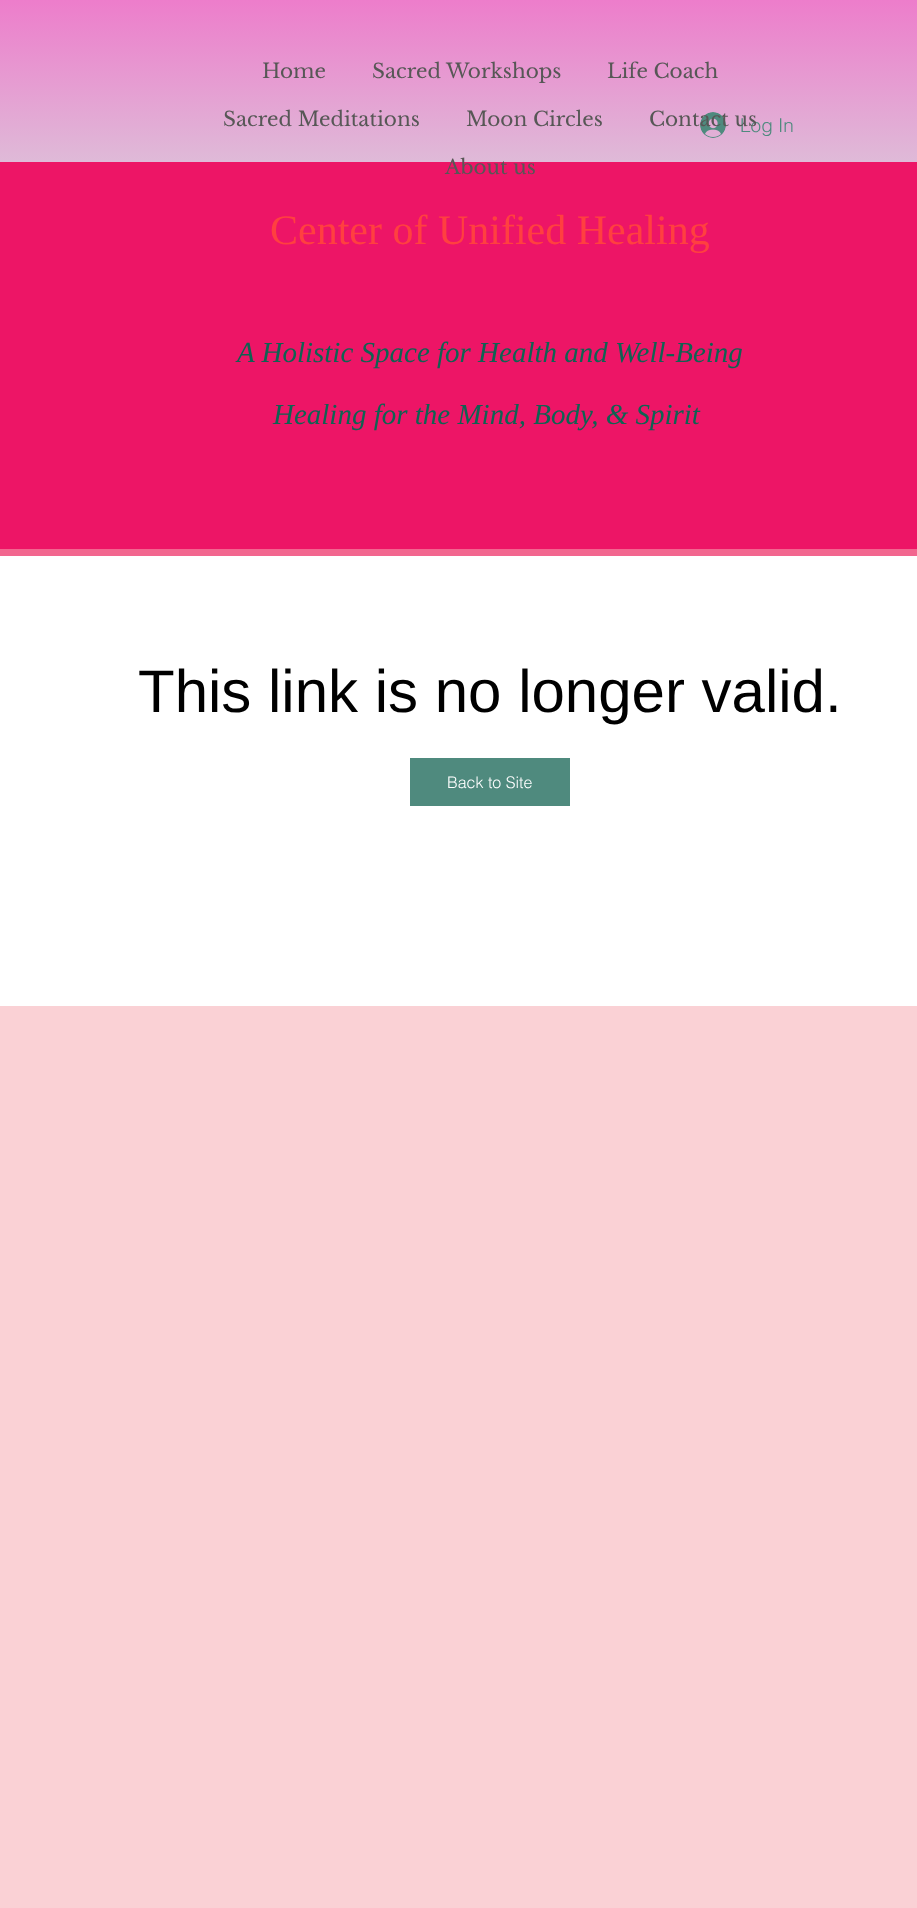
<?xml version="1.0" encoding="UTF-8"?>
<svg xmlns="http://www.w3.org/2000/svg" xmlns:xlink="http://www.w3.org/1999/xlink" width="917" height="1908">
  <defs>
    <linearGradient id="g1" gradientUnits="userSpaceOnUse" x1="526" y1="0" x2="526" y2="162"><stop offset="0" stop-color="#ed7dcb" /><stop offset="1" stop-color="#dfbad8" /></linearGradient>
  </defs>
  <rect width="100%" height="100%" fill="#fad1d5" />
  <rect width="917" height="162" fill="url(#g1)" />
  <image x="700" y="112" width="26" height="26" xlink:href="image1.png" />
  <rect y="162" width="917" height="387" fill="#ed1566" />
  <rect y="549" width="917" height="7" fill="#f2668f" />
  <rect y="556" width="917" height="450" fill="#ffffff" />
  <rect x="410" y="758" width="160" height="48" fill="#4f8a7e" />
  <text x="262" y="78" style="font-family: Libre Baskerville; font-size: 20px; fill: #575756">Home</text>
  <text x="372" y="78" style="font-family: Libre Baskerville; font-size: 20px; fill: #575756">Sacred Workshops</text>
  <text x="607" y="78" style="font-family: Libre Baskerville; font-size: 20px; fill: #575756">Life Coach</text>
  <text x="223" y="126" style="font-family: Libre Baskerville; font-size: 20px; fill: #575756">Sacred Meditations</text>
  <text x="466" y="126" style="font-family: Libre Baskerville; font-size: 20px; fill: #575756">Moon Circles</text>
  <text x="445" y="174" style="font-family: Libre Baskerville; font-size: 20px; fill: #575756">About us</text>
  <text x="740" y="132" style="font-family: helvetica; font-size: 19px; font-weight: 300; fill: #4f8a7e">Log In</text>
  <text x="649" y="126" style="font-family: Libre Baskerville; font-size: 20px; fill: #575756">Contact us</text>
  <text x="270" y="244" style="font-family: Liberation Serif; font-size: 42px; fill: #ff4040">Center of Unified Healing</text>
  <text x="237" y="362" style="font-family: Liberation Serif; font-size: 29px; font-style: italic; fill: #0e6352">A Holistic Space for Health and Well-Being</text>
  <text x="273" y="424" style="font-family: Liberation Serif; font-size: 29px; font-style: italic; fill: #0e6352">Healing for the Mind, Body, &amp; Spirit</text>
  <text x="138" y="712" style="font-family: Liberation Sans; font-size: 60px; fill: #000000">This link is no longer valid.</text>
  <text x="447" y="788" style="font-family: helvetica; font-size: 16px; font-weight: 300; fill: #ffffff">Back to Site</text>
</svg>
